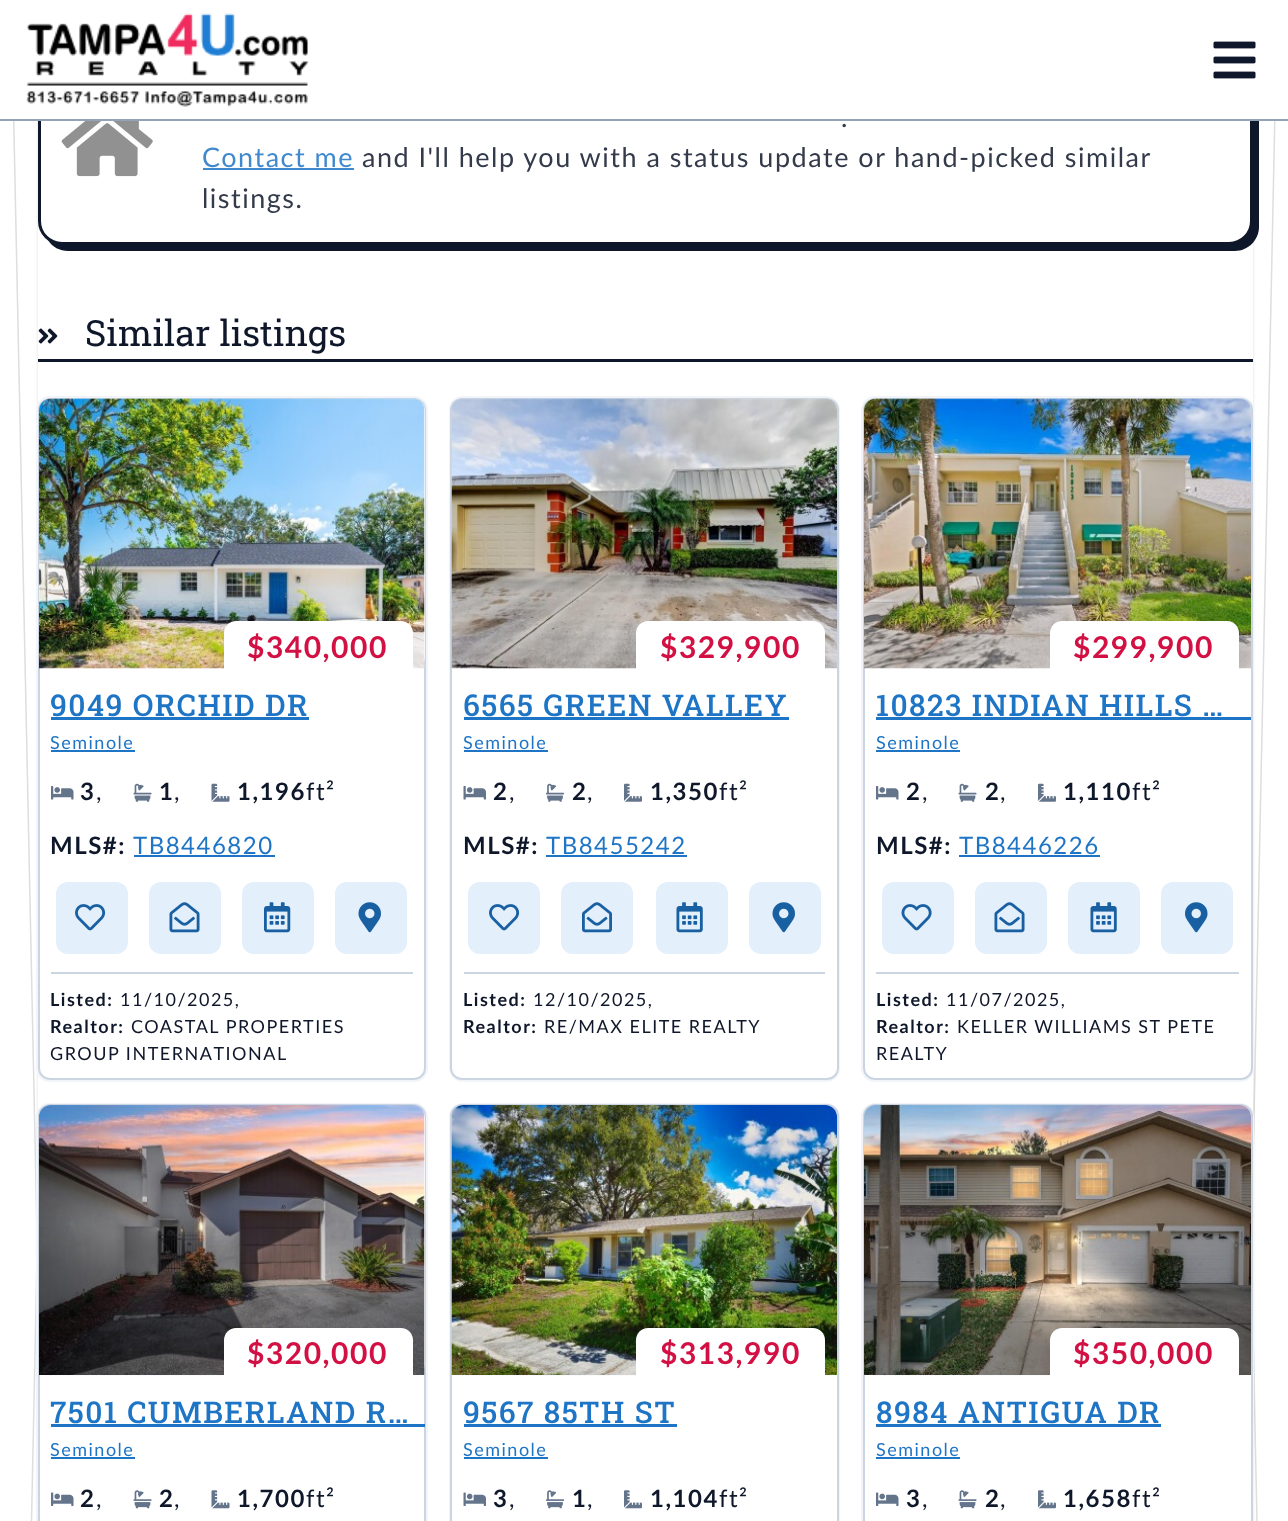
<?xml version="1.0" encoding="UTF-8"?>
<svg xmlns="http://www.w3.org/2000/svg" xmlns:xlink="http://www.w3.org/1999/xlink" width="1288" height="1521">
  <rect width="100%" height="100%" fill="#ffffff" />
  <path d="M 11.5 13.5 l 1213.5 -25 l 52 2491.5 l -1213.5 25.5 z" fill="none" stroke="#dedede" stroke-width="1.5" />
  <path d="M 63 -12 l 1215 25 l -52 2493 l -1215 -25 z" fill="#ffffff" />
  <path d="M 63.5 -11.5 l 1213.5 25 l -52 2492 l -1213.5 -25.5 z" fill="none" stroke="#222426" stroke-opacity="0.15" stroke-width="1.5" />
  <rect x="38" y="2" width="1215" height="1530" rx="6" fill="#222426" fill-opacity="0.15" filter="blur(1.5px)" />
  <rect x="38" y="221" width="1215" height="1300" fill="#ffffff" />
  <path d="M 48 240 c 4 7 12 11 20 11 h 1167 c 13 0 24 -11 24 -24 v -161 c 0 -9 -4 -16 -11 -20 c 3 4 4 9 4 14 v 160 c 0 14 -10 24 -24 24 h -1166 c -5 0 -10 -1 -14 -4 z" fill="#0f172a" />
  <rect x="39.5" y="37.5" width="1212" height="206" rx="22.5" fill="#ffffff" stroke="#0f172a" stroke-width="3" />
  <rect x="10" width="1268" height="119" fill="#ffffff" />
  <rect y="119" width="1288" height="2" fill="#94a3b8" />
  <image x="26" y="13" width="283" height="94" xlink:href="image1.png" />
  <image x="1213" y="41" width="43" height="38" xlink:href="image2.png" />
  <image x="61" y="121" width="92" height="56" xlink:href="image3.png" />
  <rect x="203" y="168" width="151" height="2" fill="#4089ce" />
  <rect x="38" y="359" width="1215" height="3" fill="#0f172a" />
  <image x="38" y="328" width="20" height="16" xlink:href="image4.png" />
  <rect x="37" y="397" width="390" height="684" rx="13" fill="none" stroke="#f1f5f9" stroke-width="2" />
  <rect x="39" y="399" width="386" height="680" rx="11" fill="none" stroke="#cbd5e1" stroke-width="2" />
  <rect x="39" y="399" width="386" height="270" rx="12" fill="#f8fafc" />
  <image x="39" y="398" width="386" height="271" xlink:href="image5.png" />
  <path d="M 236 621 h 165 c 6.5 0 12 5.5 12 12 v 36 h -189 v -36 c 0 -6.5 5.5 -12 12 -12 z" fill="#ffffff" />
  <rect x="51" y="717" width="258" height="3" fill="#1e74c5" />
  <rect x="51" y="750" width="84" height="2" fill="#1e74c5" />
  <image x="51" y="786" width="23" height="14" xlink:href="image6.png" />
  <image x="133" y="783" width="19" height="19" xlink:href="image7.png" />
  <image x="211" y="783" width="19" height="19" xlink:href="image8.png" />
  <rect x="134" y="855" width="141" height="2" fill="#1e74c5" />
  <rect x="56" y="882" width="72" height="72" rx="12" fill="#e3effa" />
  <image x="75" y="904" width="31" height="27" xlink:href="image9.png" />
  <rect x="149" y="882" width="72" height="72" rx="12" fill="#e3effa" />
  <image x="169" y="902" width="31" height="31" xlink:href="image10.png" />
  <rect x="242" y="882" width="72" height="72" rx="12" fill="#e3effa" />
  <image x="264" y="902" width="27" height="31" xlink:href="image11.png" />
  <rect x="335" y="882" width="72" height="72" rx="12" fill="#e3effa" />
  <image x="358" y="902" width="23" height="31" xlink:href="image12.png" />
  <rect x="51" y="972" width="362" height="2" fill="#cbd5e1" />
  <rect x="450" y="397" width="389" height="684" rx="13" fill="none" stroke="#f1f5f9" stroke-width="2" />
  <rect x="451" y="399" width="387" height="680" rx="11" fill="none" stroke="#cbd5e1" stroke-width="2" />
  <rect x="452" y="399" width="385" height="270" rx="12" fill="#f8fafc" />
  <image x="451" y="398" width="386" height="271" xlink:href="image13.png" />
  <path d="M 648 621 h 165 c 6.5 0 12 5.5 12 12 v 36 h -189 v -36 c 0 -6.5 5.5 -12 12 -12 z" fill="#ffffff" />
  <rect x="464" y="717" width="325" height="3" fill="#1e74c5" />
  <rect x="464" y="750" width="84" height="2" fill="#1e74c5" />
  <image x="463" y="786" width="23" height="14" xlink:href="image14.png" />
  <image x="546" y="783" width="18" height="19" xlink:href="image15.png" />
  <image x="624" y="783" width="18" height="19" xlink:href="image16.png" />
  <rect x="546" y="855" width="141" height="2" fill="#1e74c5" />
  <rect x="468" y="882" width="72" height="72" rx="12" fill="#e3effa" />
  <image x="489" y="904" width="31" height="27" xlink:href="image9.png" />
  <rect x="561" y="882" width="72" height="72" rx="12" fill="#e3effa" />
  <image x="582" y="902" width="30" height="31" xlink:href="image17.png" />
  <rect x="656" y="882" width="72" height="72" rx="12" fill="#e3effa" />
  <image x="676" y="902" width="27" height="31" xlink:href="image18.png" />
  <rect x="749" y="882" width="72" height="72" rx="12" fill="#e3effa" />
  <image x="772" y="902" width="23" height="31" xlink:href="image12.png" />
  <rect x="464" y="972" width="361" height="2" fill="#cbd5e1" />
  <rect x="862" y="397" width="391" height="684" rx="13" fill="none" stroke="#f1f5f9" stroke-width="2" />
  <rect x="864" y="399" width="388" height="680" rx="11" fill="none" stroke="#cbd5e1" stroke-width="2" />
  <rect x="864" y="399" width="387" height="270" rx="12" fill="#f8fafc" />
  <image x="864" y="398" width="387" height="271" xlink:href="image19.png" />
  <path d="M 1062 621 h 165 c 6.5 0 12 5.5 12 12 v 36 h -189 v -36 c 0 -6.5 5.5 -12 12 -12 z" fill="#ffffff" />
  <rect x="876" y="717" width="375" height="3" fill="#1e74c5" />
  <rect x="876" y="750" width="84" height="2" fill="#1e74c5" />
  <image x="876" y="786" width="23" height="14" xlink:href="image6.png" />
  <image x="958" y="783" width="19" height="19" xlink:href="image7.png" />
  <image x="1038" y="783" width="18" height="19" xlink:href="image16.png" />
  <rect x="959" y="855" width="141" height="2" fill="#1e74c5" />
  <rect x="882" y="882" width="72" height="72" rx="12" fill="#e3effa" />
  <image x="901" y="904" width="31" height="27" xlink:href="image20.png" />
  <rect x="975" y="882" width="72" height="72" rx="12" fill="#e3effa" />
  <image x="994" y="902" width="31" height="31" xlink:href="image10.png" />
  <rect x="1068" y="882" width="72" height="72" rx="12" fill="#e3effa" />
  <image x="1090" y="902" width="27" height="31" xlink:href="image18.png" />
  <rect x="1161" y="882" width="72" height="72" rx="12" fill="#e3effa" />
  <image x="1185" y="902" width="23" height="31" xlink:href="image21.png" />
  <rect x="876" y="972" width="363" height="2" fill="#cbd5e1" />
  <rect x="37" y="1104" width="390" height="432" rx="13" fill="none" stroke="#f1f5f9" stroke-width="2" />
  <rect x="39" y="1105" width="386" height="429" rx="11" fill="none" stroke="#cbd5e1" stroke-width="2" />
  <rect x="39" y="1106" width="386" height="270" rx="12" fill="#f8fafc" />
  <image x="39" y="1105" width="386" height="270" xlink:href="image22.png" />
  <path d="M 236 1328 h 165 c 6.5 0 12 5.5 12 12 v 36 h -189 v -36 c 0 -6.5 5.5 -12 12 -12 z" fill="#ffffff" />
  <rect x="51" y="1424" width="374" height="3" fill="#1e74c5" />
  <rect x="51" y="1457" width="84" height="2" fill="#1e74c5" />
  <image x="51" y="1492" width="23" height="14" xlink:href="image23.png" />
  <image x="133" y="1490" width="19" height="19" xlink:href="image24.png" />
  <image x="211" y="1490" width="19" height="19" xlink:href="image25.png" />
  <rect x="450" y="1104" width="389" height="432" rx="13" fill="none" stroke="#f1f5f9" stroke-width="2" />
  <rect x="451" y="1105" width="387" height="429" rx="11" fill="none" stroke="#cbd5e1" stroke-width="2" />
  <rect x="452" y="1106" width="385" height="270" rx="12" fill="#f8fafc" />
  <image x="451" y="1105" width="386" height="270" xlink:href="image26.png" />
  <path d="M 648 1328 h 165 c 6.5 0 12 5.5 12 12 v 36 h -189 v -36 c 0 -6.5 5.5 -12 12 -12 z" fill="#ffffff" />
  <rect x="464" y="1424" width="213" height="3" fill="#1e74c5" />
  <rect x="464" y="1457" width="84" height="2" fill="#1e74c5" />
  <image x="463" y="1492" width="23" height="14" xlink:href="image27.png" />
  <image x="546" y="1490" width="18" height="19" xlink:href="image28.png" />
  <image x="624" y="1490" width="18" height="19" xlink:href="image29.png" />
  <rect x="862" y="1104" width="391" height="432" rx="13" fill="none" stroke="#f1f5f9" stroke-width="2" />
  <rect x="864" y="1105" width="388" height="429" rx="11" fill="none" stroke="#cbd5e1" stroke-width="2" />
  <rect x="864" y="1106" width="387" height="270" rx="12" fill="#f8fafc" />
  <image x="864" y="1105" width="387" height="270" xlink:href="image30.png" />
  <path d="M 1062 1328 h 165 c 6.5 0 12 5.5 12 12 v 36 h -189 v -36 c 0 -6.5 5.5 -12 12 -12 z" fill="#ffffff" />
  <rect x="876" y="1424" width="285" height="3" fill="#1e74c5" />
  <rect x="876" y="1457" width="84" height="2" fill="#1e74c5" />
  <image x="876" y="1492" width="23" height="14" xlink:href="image23.png" />
  <image x="958" y="1490" width="19" height="19" xlink:href="image24.png" />
  <image x="1038" y="1490" width="18" height="19" xlink:href="image29.png" />
  <text x="841" y="127" style="font-family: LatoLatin; font-size: 27px; letter-spacing: 1.5px; fill: #333a4a">.</text>
  <text x="202" y="167" style="font-family: LatoLatin; font-size: 27px; letter-spacing: 1.5px; fill: #4089ce">Contact me</text>
  <text x="362" y="167" style="font-family: LatoLatin; font-size: 27px; letter-spacing: 1.5px; fill: #333a4a">and I'll help you with a status update or hand-picked similar</text>
  <text x="202" y="208" style="font-family: LatoLatin; font-size: 27px; letter-spacing: 1.5px; fill: #333a4a">listings.</text>
  <text x="85" y="346" style="font-family: Roboto Slab; font-size: 36px; fill: #0f172a">Similar listings</text>
  <text x="247" y="658" style="font-family: LatoLatin; font-size: 30px; font-weight: bold; letter-spacing: 1.5px; fill: #d21043">$340,000</text>
  <text x="50" y="716" style="font-family: Roboto Slab; font-size: 30px; font-weight: 500; letter-spacing: 1.5px; fill: #1e74c5">9049 ORCHID DR</text>
  <text x="50" y="749" style="font-family: LatoLatin; font-size: 18px; letter-spacing: 1.5px; fill: #1e74c5">Seminole</text>
  <text x="80" y="800" style="font-family: LatoLatin; font-size: 24px; font-weight: bold; letter-spacing: 1.5px; fill: #0f172a">3</text>
  <text x="96" y="800" style="font-family: LatoLatin; font-size: 24px; letter-spacing: 1.5px; fill: #0f172a">,</text>
  <text x="159" y="800" style="font-family: LatoLatin; font-size: 24px; font-weight: bold; letter-spacing: 1.5px; fill: #0f172a">1</text>
  <text x="174" y="800" style="font-family: LatoLatin; font-size: 24px; letter-spacing: 1.5px; fill: #0f172a">,</text>
  <text x="237" y="800" style="font-family: LatoLatin; font-size: 24px; font-weight: bold; letter-spacing: 1.5px; fill: #0f172a">1,196</text>
  <text x="306" y="800" style="font-family: LatoLatin; font-size: 24px; letter-spacing: 1.5px; fill: #0f172a">ft²</text>
  <text x="50" y="854" style="font-family: LatoLatin; font-size: 24px; font-weight: bold; letter-spacing: 1.5px; fill: #0f172a">MLS#:</text>
  <text x="133" y="854" style="font-family: LatoLatin; font-size: 24px; letter-spacing: 1.5px; fill: #1e74c5">TB8446820</text>
  <text x="50" y="1006" style="font-family: LatoLatin; font-size: 18px; font-weight: bold; letter-spacing: 1.5px; fill: #0f172a">Listed:</text>
  <text x="120" y="1006" style="font-family: LatoLatin; font-size: 18px; letter-spacing: 1.5px; fill: #0f172a">11/10/2025,</text>
  <text x="50" y="1033" style="font-family: LatoLatin; font-size: 18px; font-weight: bold; letter-spacing: 1.5px; fill: #0f172a">Realtor:</text>
  <text x="131" y="1033" style="font-family: LatoLatin; font-size: 18px; letter-spacing: 1.5px; fill: #0f172a">COASTAL PROPERTIES</text>
  <text x="50" y="1060" style="font-family: LatoLatin; font-size: 18px; letter-spacing: 1.5px; fill: #0f172a">GROUP INTERNATIONAL</text>
  <text x="660" y="658" style="font-family: LatoLatin; font-size: 30px; font-weight: bold; letter-spacing: 1.5px; fill: #d21043">$329,900</text>
  <text x="463" y="716" style="font-family: Roboto Slab; font-size: 30px; font-weight: 500; letter-spacing: 1.5px; fill: #1e74c5">6565 GREEN VALLEY</text>
  <text x="463" y="749" style="font-family: LatoLatin; font-size: 18px; letter-spacing: 1.5px; fill: #1e74c5">Seminole</text>
  <text x="493" y="800" style="font-family: LatoLatin; font-size: 24px; font-weight: bold; letter-spacing: 1.5px; fill: #0f172a">2</text>
  <text x="509" y="800" style="font-family: LatoLatin; font-size: 24px; letter-spacing: 1.5px; fill: #0f172a">,</text>
  <text x="572" y="800" style="font-family: LatoLatin; font-size: 24px; font-weight: bold; letter-spacing: 1.5px; fill: #0f172a">2</text>
  <text x="587" y="800" style="font-family: LatoLatin; font-size: 24px; letter-spacing: 1.5px; fill: #0f172a">,</text>
  <text x="650" y="800" style="font-family: LatoLatin; font-size: 24px; font-weight: bold; letter-spacing: 1.5px; fill: #0f172a">1,350</text>
  <text x="719" y="800" style="font-family: LatoLatin; font-size: 24px; letter-spacing: 1.5px; fill: #0f172a">ft²</text>
  <text x="463" y="854" style="font-family: LatoLatin; font-size: 24px; font-weight: bold; letter-spacing: 1.5px; fill: #0f172a">MLS#:</text>
  <text x="546" y="854" style="font-family: LatoLatin; font-size: 24px; letter-spacing: 1.5px; fill: #1e74c5">TB8455242</text>
  <text x="463" y="1006" style="font-family: LatoLatin; font-size: 18px; font-weight: bold; letter-spacing: 1.5px; fill: #0f172a">Listed:</text>
  <text x="533" y="1006" style="font-family: LatoLatin; font-size: 18px; letter-spacing: 1.5px; fill: #0f172a">12/10/2025,</text>
  <text x="463" y="1033" style="font-family: LatoLatin; font-size: 18px; font-weight: bold; letter-spacing: 1.5px; fill: #0f172a">Realtor:</text>
  <text x="544" y="1033" style="font-family: LatoLatin; font-size: 18px; letter-spacing: 1.5px; fill: #0f172a">RE/MAX ELITE REALTY</text>
  <text x="1073" y="658" style="font-family: LatoLatin; font-size: 30px; font-weight: bold; letter-spacing: 1.5px; fill: #d21043">$299,900</text>
  <text x="876" y="716" style="font-family: Roboto Slab; font-size: 30px; font-weight: 500; letter-spacing: 1.5px; fill: #1e74c5">10823 INDIAN HILLS …</text>
  <text x="876" y="749" style="font-family: LatoLatin; font-size: 18px; letter-spacing: 1.5px; fill: #1e74c5">Seminole</text>
  <text x="906" y="800" style="font-family: LatoLatin; font-size: 24px; font-weight: bold; letter-spacing: 1.5px; fill: #0f172a">2</text>
  <text x="922" y="800" style="font-family: LatoLatin; font-size: 24px; letter-spacing: 1.5px; fill: #0f172a">,</text>
  <text x="985" y="800" style="font-family: LatoLatin; font-size: 24px; font-weight: bold; letter-spacing: 1.5px; fill: #0f172a">2</text>
  <text x="1000" y="800" style="font-family: LatoLatin; font-size: 24px; letter-spacing: 1.5px; fill: #0f172a">,</text>
  <text x="1063" y="800" style="font-family: LatoLatin; font-size: 24px; font-weight: bold; letter-spacing: 1.5px; fill: #0f172a">1,110</text>
  <text x="1132" y="800" style="font-family: LatoLatin; font-size: 24px; letter-spacing: 1.5px; fill: #0f172a">ft²</text>
  <text x="876" y="854" style="font-family: LatoLatin; font-size: 24px; font-weight: bold; letter-spacing: 1.5px; fill: #0f172a">MLS#:</text>
  <text x="959" y="854" style="font-family: LatoLatin; font-size: 24px; letter-spacing: 1.5px; fill: #1e74c5">TB8446226</text>
  <text x="876" y="1006" style="font-family: LatoLatin; font-size: 18px; font-weight: bold; letter-spacing: 1.5px; fill: #0f172a">Listed:</text>
  <text x="946" y="1006" style="font-family: LatoLatin; font-size: 18px; letter-spacing: 1.5px; fill: #0f172a">11/07/2025,</text>
  <text x="876" y="1033" style="font-family: LatoLatin; font-size: 18px; font-weight: bold; letter-spacing: 1.5px; fill: #0f172a">Realtor:</text>
  <text x="957" y="1033" style="font-family: LatoLatin; font-size: 18px; letter-spacing: 1.5px; fill: #0f172a">KELLER WILLIAMS ST PETE</text>
  <text x="876" y="1060" style="font-family: LatoLatin; font-size: 18px; letter-spacing: 1.5px; fill: #0f172a">REALTY</text>
  <text x="247" y="1364" style="font-family: LatoLatin; font-size: 30px; font-weight: bold; letter-spacing: 1.5px; fill: #d21043">$320,000</text>
  <text x="50" y="1423" style="font-family: Roboto Slab; font-size: 30px; font-weight: 500; letter-spacing: 1.5px; fill: #1e74c5">7501 CUMBERLAND R…</text>
  <text x="50" y="1456" style="font-family: LatoLatin; font-size: 18px; letter-spacing: 1.5px; fill: #1e74c5">Seminole</text>
  <text x="80" y="1507" style="font-family: LatoLatin; font-size: 24px; font-weight: bold; letter-spacing: 1.5px; fill: #0f172a">2</text>
  <text x="159" y="1507" style="font-family: LatoLatin; font-size: 24px; font-weight: bold; letter-spacing: 1.5px; fill: #0f172a">2</text>
  <text x="237" y="1507" style="font-family: LatoLatin; font-size: 24px; font-weight: bold; letter-spacing: 1.5px; fill: #0f172a">1,700</text>
  <text x="306" y="1507" style="font-family: LatoLatin; font-size: 24px; letter-spacing: 1.5px; fill: #0f172a">ft²</text>
  <text x="96" y="1507" style="font-family: LatoLatin; font-size: 24px; letter-spacing: 1.5px; fill: #0f172a">,</text>
  <text x="174" y="1507" style="font-family: LatoLatin; font-size: 24px; letter-spacing: 1.5px; fill: #0f172a">,</text>
  <text x="660" y="1364" style="font-family: LatoLatin; font-size: 30px; font-weight: bold; letter-spacing: 1.5px; fill: #d21043">$313,990</text>
  <text x="463" y="1423" style="font-family: Roboto Slab; font-size: 30px; font-weight: 500; letter-spacing: 1.5px; fill: #1e74c5">9567 85TH ST</text>
  <text x="463" y="1456" style="font-family: LatoLatin; font-size: 18px; letter-spacing: 1.5px; fill: #1e74c5">Seminole</text>
  <text x="493" y="1507" style="font-family: LatoLatin; font-size: 24px; font-weight: bold; letter-spacing: 1.5px; fill: #0f172a">3</text>
  <text x="572" y="1507" style="font-family: LatoLatin; font-size: 24px; font-weight: bold; letter-spacing: 1.5px; fill: #0f172a">1</text>
  <text x="650" y="1507" style="font-family: LatoLatin; font-size: 24px; font-weight: bold; letter-spacing: 1.5px; fill: #0f172a">1,104</text>
  <text x="719" y="1507" style="font-family: LatoLatin; font-size: 24px; letter-spacing: 1.5px; fill: #0f172a">ft²</text>
  <text x="509" y="1507" style="font-family: LatoLatin; font-size: 24px; letter-spacing: 1.5px; fill: #0f172a">,</text>
  <text x="587" y="1507" style="font-family: LatoLatin; font-size: 24px; letter-spacing: 1.5px; fill: #0f172a">,</text>
  <text x="1073" y="1364" style="font-family: LatoLatin; font-size: 30px; font-weight: bold; letter-spacing: 1.5px; fill: #d21043">$350,000</text>
  <text x="876" y="1423" style="font-family: Roboto Slab; font-size: 30px; font-weight: 500; letter-spacing: 1.5px; fill: #1e74c5">8984 ANTIGUA DR</text>
  <text x="876" y="1456" style="font-family: LatoLatin; font-size: 18px; letter-spacing: 1.5px; fill: #1e74c5">Seminole</text>
  <text x="906" y="1507" style="font-family: LatoLatin; font-size: 24px; font-weight: bold; letter-spacing: 1.5px; fill: #0f172a">3</text>
  <text x="985" y="1507" style="font-family: LatoLatin; font-size: 24px; font-weight: bold; letter-spacing: 1.5px; fill: #0f172a">2</text>
  <text x="1063" y="1507" style="font-family: LatoLatin; font-size: 24px; font-weight: bold; letter-spacing: 1.5px; fill: #0f172a">1,658</text>
  <text x="1132" y="1507" style="font-family: LatoLatin; font-size: 24px; letter-spacing: 1.5px; fill: #0f172a">ft²</text>
  <text x="922" y="1507" style="font-family: LatoLatin; font-size: 24px; letter-spacing: 1.5px; fill: #0f172a">,</text>
  <text x="1000" y="1507" style="font-family: LatoLatin; font-size: 24px; letter-spacing: 1.5px; fill: #0f172a">,</text>
</svg>
